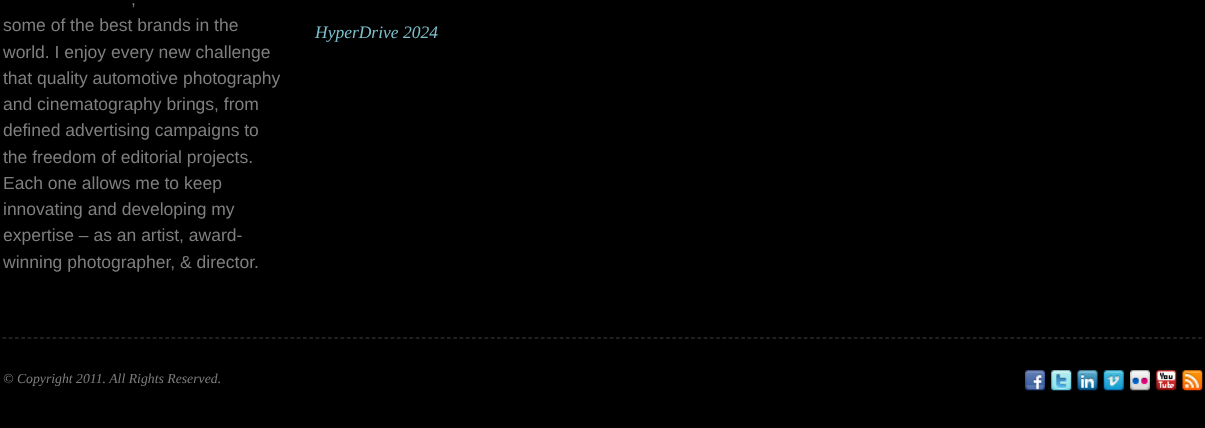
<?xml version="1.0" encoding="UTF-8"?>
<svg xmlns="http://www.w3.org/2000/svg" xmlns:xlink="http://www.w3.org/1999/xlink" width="1205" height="428">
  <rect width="100%" height="100%" fill="#000000" />
  <path d="M 2.5 338 h 1200" fill="none" stroke="#404040" stroke-width="1.2" stroke-dasharray="3.75 2.51" />
  <image x="1025" y="370" width="20" height="21" xlink:href="image1.png" />
  <image x="1051" y="370" width="21" height="21" xlink:href="image2.png" />
  <image x="1077" y="370" width="21" height="21" xlink:href="image3.png" />
  <image x="1103" y="370" width="21" height="21" xlink:href="image4.png" />
  <image x="1130" y="370" width="20" height="21" xlink:href="image5.png" />
  <image x="1156" y="370" width="21" height="21" xlink:href="image6.png" />
  <image x="1182" y="370" width="21" height="21" xlink:href="image7.png" />
  <text x="131" y="5" style="font-family: Liberation Sans; font-size: 17.5px; fill: #7f7f7f">,</text>
  <text x="3" y="31" style="font-family: Liberation Sans; font-size: 17.5px; fill: #7f7f7f">some of the best brands in the</text>
  <text x="3" y="58" style="font-family: Liberation Sans; font-size: 17.5px; fill: #7f7f7f">world. I enjoy every new challenge</text>
  <text x="3" y="84" style="font-family: Liberation Sans; font-size: 17.5px; fill: #7f7f7f">that quality automotive photography</text>
  <text x="3" y="110" style="font-family: Liberation Sans; font-size: 17.5px; fill: #7f7f7f">and cinematography brings, from</text>
  <text x="3" y="136" style="font-family: Liberation Sans; font-size: 17.5px; fill: #7f7f7f">defined advertising campaigns to</text>
  <text x="3" y="163" style="font-family: Liberation Sans; font-size: 17.5px; fill: #7f7f7f">the freedom of editorial projects.</text>
  <text x="3" y="189" style="font-family: Liberation Sans; font-size: 17.5px; fill: #7f7f7f">Each one allows me to keep</text>
  <text x="3" y="215" style="font-family: Liberation Sans; font-size: 17.5px; fill: #7f7f7f">innovating and developing my</text>
  <text x="3" y="241" style="font-family: Liberation Sans; font-size: 17.5px; fill: #7f7f7f">expertise – as an artist, award-</text>
  <text x="3" y="268" style="font-family: Liberation Sans; font-size: 17.5px; fill: #7f7f7f">winning photographer, &amp; director.</text>
  <text x="315" y="38" style="font-family: Liberation Serif; font-size: 17.5px; font-style: italic; fill: #7cc0cb">HyperDrive 2024</text>
  <text x="3" y="383" style="font-family: Liberation Serif; font-size: 13.75px; font-style: italic; fill: #7f7f7f">© Copyright 2011. All Rights Reserved.</text>
</svg>
